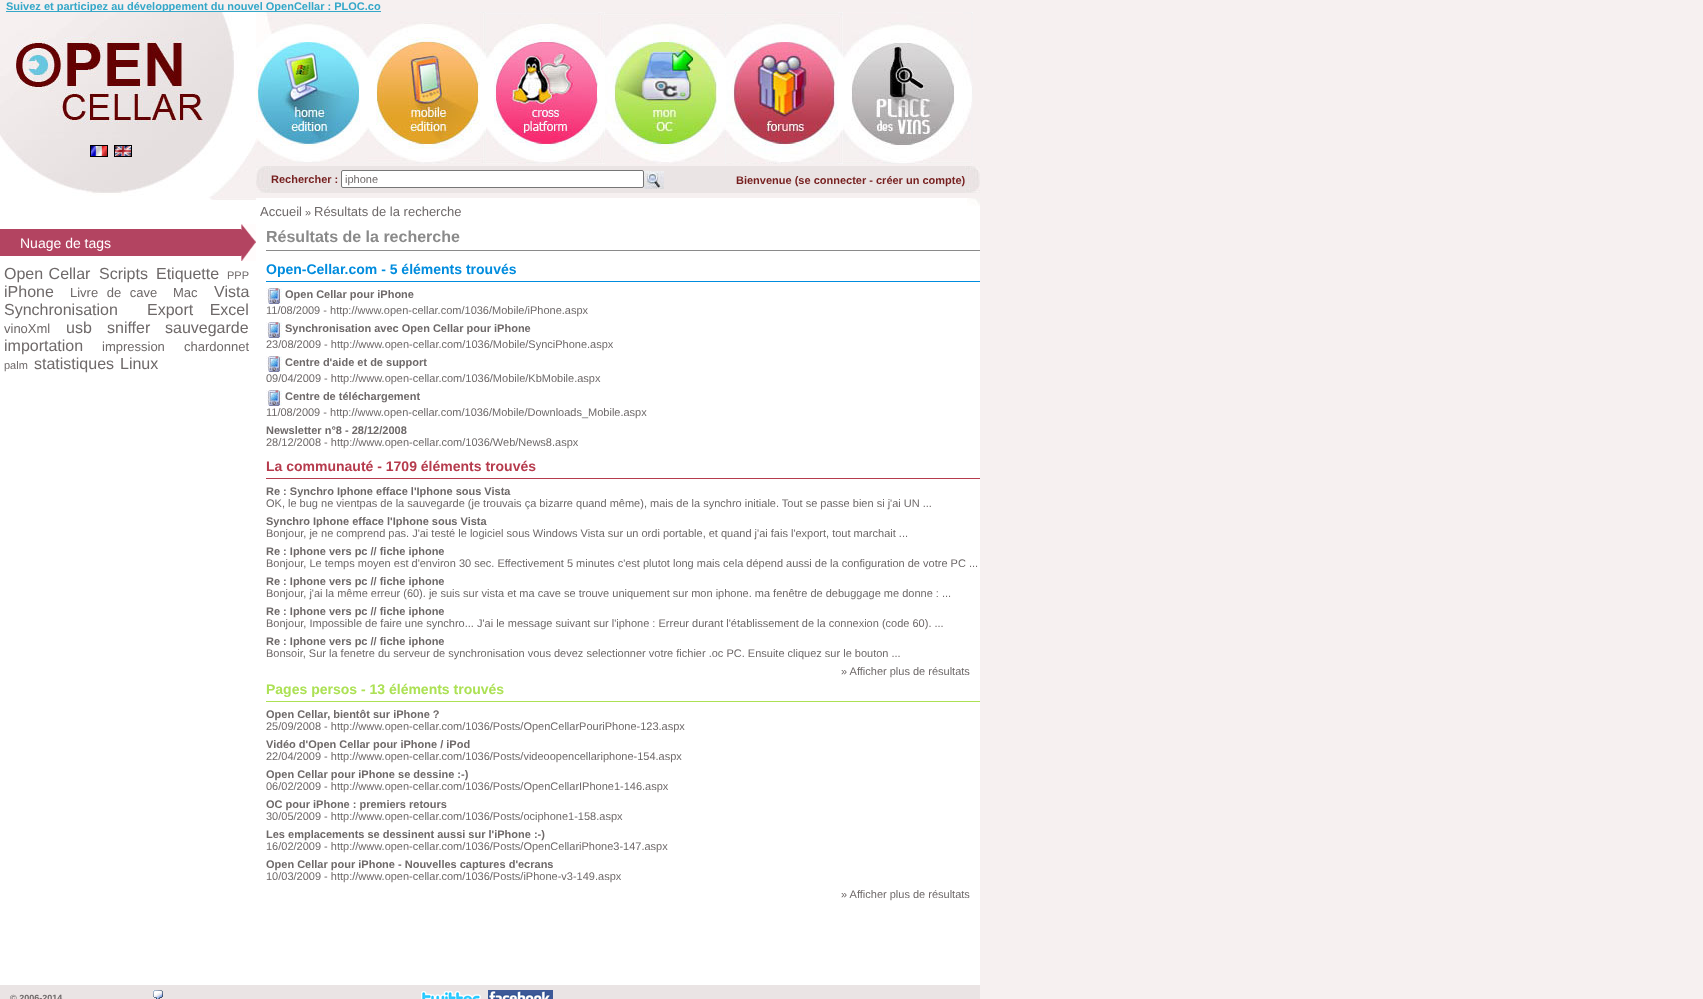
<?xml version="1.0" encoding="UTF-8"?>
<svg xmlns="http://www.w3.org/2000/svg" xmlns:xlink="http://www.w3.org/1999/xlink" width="1703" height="999">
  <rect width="100%" height="100%" fill="#f6f0f0" />
  <rect x="6" y="11" width="375" height="1" fill="#34a7c8" />
  <image x="486" y="12" width="119" height="152" xlink:href="image6.png" />
  <image x="605" y="13" width="120" height="151" xlink:href="image7.png" />
  <image x="725" y="12" width="118" height="152" xlink:href="image8.png" />
  <image x="843" y="12" width="130" height="152" xlink:href="image9.png" />
  <image x="256" y="166" width="15" height="27" xlink:href="image10.png" />
  <rect x="271" y="166" width="694" height="27" fill="#eae4e4" />
  <rect x="341.5" y="170.5" width="302" height="17" rx="1.5" fill="#ffffff" stroke="#767676" />
  <image x="644" y="171" width="20" height="18" xlink:href="image11.png" />
  <image x="965" y="166" width="15" height="27" xlink:href="image12.png" />
  <rect y="198" width="980" height="26" fill="#ffffff" />
  <image x="967" y="198" width="13" height="8" xlink:href="image13.png" />
  <rect y="224" width="980" height="761" fill="#ffffff" />
  <rect y="229" width="241" height="27" fill="#b34461" />
  <image x="241" y="224" width="15" height="37" xlink:href="image14.png" />
  <rect x="266" y="250" width="714" height="1" fill="#8a8a8a" />
  <rect x="266" y="281" width="714" height="1" fill="#008cde" />
  <image x="266" y="288" width="16" height="16" xlink:href="image15.png" />
  <image x="266" y="322" width="16" height="16" xlink:href="image15.png" />
  <image x="266" y="356" width="16" height="16" xlink:href="image15.png" />
  <image x="266" y="390" width="16" height="16" xlink:href="image15.png" />
  <rect x="266" y="478" width="714" height="1" fill="#b63b4d" />
  <rect x="266" y="701" width="714" height="1" fill="#ace154" />
  <rect y="985" width="980" height="14" fill="#eae4e4" />
  <image x="153" y="990" width="10" height="9" xlink:href="image16.png" />
  <image x="421" y="991" width="60" height="8" xlink:href="image17.png" />
  <image x="488" y="990" width="65" height="9" xlink:href="image18.png" />
  <text x="6" y="10" style="font-family: Liberation Sans; font-size: 11px; font-weight: bold; fill: #34a7c8">Suivez et participez au développement du nouvel OpenCellar : PLOC.co</text>
  <image x="0" y="12" width="256" height="188" xlink:href="image1.png" />
  <image x="90" y="145" width="18" height="12" xlink:href="image2.png" />
  <image x="114" y="145" width="18" height="12" xlink:href="image3.png" />
  <image x="256" y="12" width="112" height="151" xlink:href="image4.png" />
  <image x="368" y="12" width="118" height="152" xlink:href="image5.png" />
  <text x="271" y="183" style="font-family: Liberation Sans; font-size: 11px; font-weight: bold; fill: #761f1f">Rechercher :</text>
  <text x="345" y="183" style="font-family: Liberation Sans; font-size: 11px; fill: #6e6969">iphone</text>
  <text x="736" y="184" style="font-family: Liberation Sans; font-size: 11px; font-weight: bold; fill: #761f1f">Bienvenue (se connecter - créer un compte)</text>
  <text x="260" y="216" style="font-family: Liberation Sans; font-size: 13px; fill: #6e6969">Accueil</text>
  <text x="305" y="216" style="font-family: Liberation Sans; font-size: 11px; fill: #6e6969">»</text>
  <text x="314" y="216" style="font-family: Liberation Sans; font-size: 13px; fill: #6e6969">Résultats de la recherche</text>
  <text x="20" y="248" style="font-family: Liberation Sans; font-size: 14px; fill: #ffffff">Nuage de tags</text>
  <text x="4" y="279" word-spacing="1" style="font-family: Liberation Sans; font-size: 16px; fill: #6e6969">Open Cellar</text>
  <text x="99" y="279" style="font-family: Liberation Sans; font-size: 16px; fill: #6e6969">Scripts</text>
  <text x="156" y="279" style="font-family: Liberation Sans; font-size: 16px; fill: #6e6969">Etiquette</text>
  <text x="227" y="279" style="font-family: Liberation Sans; font-size: 11px; fill: #6e6969">PPP</text>
  <text x="4" y="297" style="font-family: Liberation Sans; font-size: 16px; fill: #6e6969">iPhone</text>
  <text x="70" y="297" word-spacing="5" style="font-family: Liberation Sans; font-size: 13px; fill: #6e6969">Livre de cave</text>
  <text x="173" y="297" style="font-family: Liberation Sans; font-size: 13px; fill: #6e6969">Mac</text>
  <text x="214" y="297" style="font-family: Liberation Sans; font-size: 16px; fill: #6e6969">Vista</text>
  <text x="4" y="315" style="font-family: Liberation Sans; font-size: 16px; fill: #6e6969">Synchronisation</text>
  <text x="147" y="315" word-spacing="12" style="font-family: Liberation Sans; font-size: 16px; fill: #6e6969">Export Excel</text>
  <text x="4" y="333" style="font-family: Liberation Sans; font-size: 13px; fill: #6e6969">vinoXml</text>
  <text x="66" y="333" style="font-family: Liberation Sans; font-size: 16px; fill: #6e6969">usb</text>
  <text x="107" y="333" style="font-family: Liberation Sans; font-size: 16px; fill: #6e6969">sniffer</text>
  <text x="165" y="333" style="font-family: Liberation Sans; font-size: 16px; fill: #6e6969">sauvegarde</text>
  <text x="4" y="351" style="font-family: Liberation Sans; font-size: 16px; fill: #6e6969">importation</text>
  <text x="102" y="351" style="font-family: Liberation Sans; font-size: 13px; fill: #6e6969">impression</text>
  <text x="184" y="351" style="font-family: Liberation Sans; font-size: 13px; fill: #6e6969">chardonnet</text>
  <text x="4" y="369" style="font-family: Liberation Sans; font-size: 11px; fill: #6e6969">palm</text>
  <text x="34" y="369" style="font-family: Liberation Sans; font-size: 16px; fill: #6e6969">statistiques</text>
  <text x="120" y="369" style="font-family: Liberation Sans; font-size: 16px; fill: #6e6969">Linux</text>
  <text x="266" y="242" style="font-family: Liberation Sans; font-size: 16px; font-weight: bold; fill: #8a8a8a">Résultats de la recherche</text>
  <text x="266" y="274" style="font-family: Liberation Sans; font-size: 14px; font-weight: bold; fill: #008cde">Open-Cellar.com - 5 éléments trouvés</text>
  <text x="285" y="298" style="font-family: Liberation Sans; font-size: 11px; font-weight: bold; fill: #6e6969">Open Cellar pour iPhone</text>
  <text x="266" y="314" style="font-family: Liberation Sans; font-size: 11px; fill: #6e6969">11/08/2009 - http://www.open-cellar.com/1036/Mobile/iPhone.aspx</text>
  <text x="285" y="332" style="font-family: Liberation Sans; font-size: 11px; font-weight: bold; fill: #6e6969">Synchronisation avec Open Cellar pour iPhone</text>
  <text x="266" y="348" style="font-family: Liberation Sans; font-size: 11px; fill: #6e6969">23/08/2009 - http://www.open-cellar.com/1036/Mobile/SynciPhone.aspx</text>
  <text x="285" y="366" style="font-family: Liberation Sans; font-size: 11px; font-weight: bold; fill: #6e6969">Centre d'aide et de support</text>
  <text x="266" y="382" style="font-family: Liberation Sans; font-size: 11px; fill: #6e6969">09/04/2009 - http://www.open-cellar.com/1036/Mobile/KbMobile.aspx</text>
  <text x="285" y="400" style="font-family: Liberation Sans; font-size: 11px; font-weight: bold; fill: #6e6969">Centre de téléchargement</text>
  <text x="266" y="416" style="font-family: Liberation Sans; font-size: 11px; fill: #6e6969">11/08/2009 - http://www.open-cellar.com/1036/Mobile/Downloads_Mobile.aspx</text>
  <text x="266" y="434" style="font-family: Liberation Sans; font-size: 11px; font-weight: bold; fill: #6e6969">Newsletter n°8 - 28/12/2008</text>
  <text x="266" y="446" style="font-family: Liberation Sans; font-size: 11px; fill: #6e6969">28/12/2008 - http://www.open-cellar.com/1036/Web/News8.aspx</text>
  <text x="266" y="471" style="font-family: Liberation Sans; font-size: 14px; font-weight: bold; fill: #b63b4d">La communauté - 1709 éléments trouvés</text>
  <text x="266" y="495" style="font-family: Liberation Sans; font-size: 11px; font-weight: bold; fill: #6e6969">Re : Synchro Iphone efface l'Iphone sous Vista</text>
  <text x="266" y="507" style="font-family: Liberation Sans; font-size: 11px; fill: #6e6969">OK, le bug ne vientpas de la sauvegarde (je trouvais ça bizarre quand même), mais de la synchro initiale. Tout se passe bien si j'ai UN ...</text>
  <text x="266" y="525" style="font-family: Liberation Sans; font-size: 11px; font-weight: bold; fill: #6e6969">Synchro Iphone efface l'Iphone sous Vista</text>
  <text x="266" y="537" style="font-family: Liberation Sans; font-size: 11px; fill: #6e6969">Bonjour, je ne comprend pas. J'ai testé le logiciel sous Windows Vista sur un ordi portable, et quand j'ai fais l'export, tout marchait ...</text>
  <text x="266" y="555" style="font-family: Liberation Sans; font-size: 11px; font-weight: bold; fill: #6e6969">Re : Iphone vers pc // fiche iphone</text>
  <text x="266" y="567" style="font-family: Liberation Sans; font-size: 11px; fill: #6e6969">Bonjour, Le temps moyen est d'environ 30 sec. Effectivement 5 minutes c'est plutot long mais cela dépend aussi de la configuration de votre PC ...</text>
  <text x="266" y="585" style="font-family: Liberation Sans; font-size: 11px; font-weight: bold; fill: #6e6969">Re : Iphone vers pc // fiche iphone</text>
  <text x="266" y="597" style="font-family: Liberation Sans; font-size: 11px; fill: #6e6969">Bonjour, j'ai la même erreur (60). je suis sur vista et ma cave se trouve uniquement sur mon iphone. ma fenêtre de debuggage me donne : ...</text>
  <text x="266" y="615" style="font-family: Liberation Sans; font-size: 11px; font-weight: bold; fill: #6e6969">Re : Iphone vers pc // fiche iphone</text>
  <text x="266" y="627" style="font-family: Liberation Sans; font-size: 11px; fill: #6e6969">Bonjour, Impossible de faire une synchro... J'ai le message suivant sur l'iphone : Erreur durant l'établissement de la connexion (code 60). ...</text>
  <text x="266" y="645" style="font-family: Liberation Sans; font-size: 11px; font-weight: bold; fill: #6e6969">Re : Iphone vers pc // fiche iphone</text>
  <text x="266" y="657" style="font-family: Liberation Sans; font-size: 11px; fill: #6e6969">Bonsoir, Sur la fenetre du serveur de synchronisation vous devez selectionner votre fichier .oc PC. Ensuite cliquez sur le bouton ...</text>
  <text x="841" y="675" style="font-family: Liberation Sans; font-size: 11px; fill: #6e6969">» Afficher plus de résultats</text>
  <text x="266" y="694" style="font-family: Liberation Sans; font-size: 14px; font-weight: bold; fill: #ace154">Pages persos - 13 éléments trouvés</text>
  <text x="266" y="718" style="font-family: Liberation Sans; font-size: 11px; font-weight: bold; fill: #6e6969">Open Cellar, bientôt sur iPhone ?</text>
  <text x="266" y="730" style="font-family: Liberation Sans; font-size: 11px; fill: #6e6969">25/09/2008 - http://www.open-cellar.com/1036/Posts/OpenCellarPouriPhone-123.aspx</text>
  <text x="266" y="748" style="font-family: Liberation Sans; font-size: 11px; font-weight: bold; fill: #6e6969">Vidéo d'Open Cellar pour iPhone / iPod</text>
  <text x="266" y="760" style="font-family: Liberation Sans; font-size: 11px; fill: #6e6969">22/04/2009 - http://www.open-cellar.com/1036/Posts/videoopencellariphone-154.aspx</text>
  <text x="266" y="778" style="font-family: Liberation Sans; font-size: 11px; font-weight: bold; fill: #6e6969">Open Cellar pour iPhone se dessine :-)</text>
  <text x="266" y="790" style="font-family: Liberation Sans; font-size: 11px; fill: #6e6969">06/02/2009 - http://www.open-cellar.com/1036/Posts/OpenCellarIPhone1-146.aspx</text>
  <text x="266" y="808" style="font-family: Liberation Sans; font-size: 11px; font-weight: bold; fill: #6e6969">OC pour iPhone : premiers retours</text>
  <text x="266" y="820" style="font-family: Liberation Sans; font-size: 11px; fill: #6e6969">30/05/2009 - http://www.open-cellar.com/1036/Posts/ociphone1-158.aspx</text>
  <text x="266" y="838" style="font-family: Liberation Sans; font-size: 11px; font-weight: bold; fill: #6e6969">Les emplacements se dessinent aussi sur l'iPhone :-)</text>
  <text x="266" y="850" style="font-family: Liberation Sans; font-size: 11px; fill: #6e6969">16/02/2009 - http://www.open-cellar.com/1036/Posts/OpenCellariPhone3-147.aspx</text>
  <text x="266" y="868" style="font-family: Liberation Sans; font-size: 11px; font-weight: bold; fill: #6e6969">Open Cellar pour iPhone - Nouvelles captures d'ecrans</text>
  <text x="266" y="880" style="font-family: Liberation Sans; font-size: 11px; fill: #6e6969">10/03/2009 - http://www.open-cellar.com/1036/Posts/iPhone-v3-149.aspx</text>
  <text x="841" y="898" style="font-family: Liberation Sans; font-size: 11px; fill: #6e6969">» Afficher plus de résultats</text>
  <text x="10" y="1001" style="font-family: Liberation Sans; font-size: 9px; font-weight: bold; fill: #6e6969">© 2006-2014</text>
</svg>
